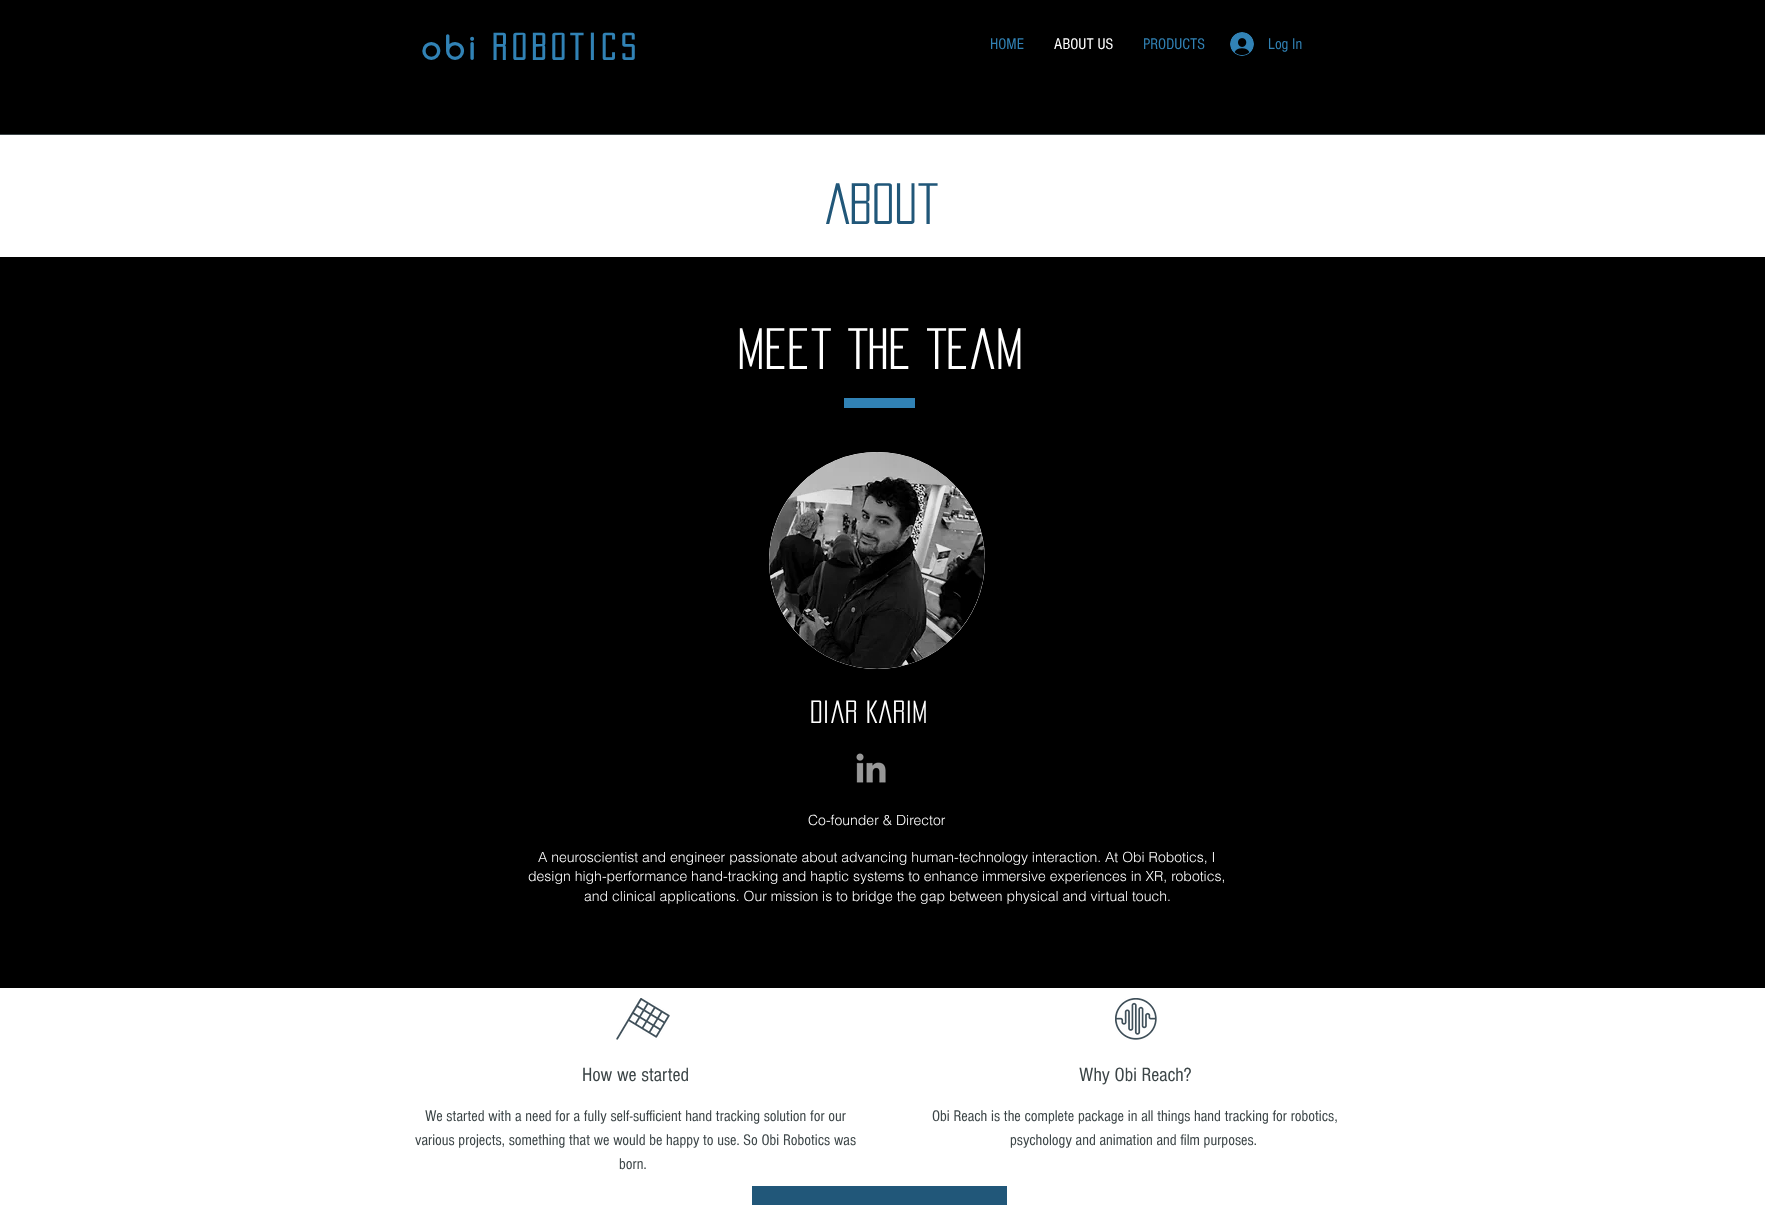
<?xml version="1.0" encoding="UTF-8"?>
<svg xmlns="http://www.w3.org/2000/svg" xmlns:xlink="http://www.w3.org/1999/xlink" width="1765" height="1205">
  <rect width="100%" height="100%" fill="#ffffff" />
  <rect width="1765" height="134" fill="#000000" />
  <rect y="134" width="1765" height="1" fill="#3c4547" />
  <image x="1230" y="32" width="24" height="24" xlink:href="image1.png" />
  <rect y="257" width="1765" height="731" fill="#000000" />
  <rect x="844" y="398" width="71" height="10" fill="#3182b5" />
  <rect x="769" y="452" width="216" height="217" rx="108" fill="#ffffff" />
  <image x="769" y="452" width="216" height="217" xlink:href="image2.png" />
  <image x="856" y="753" width="30" height="30" xlink:href="image3.png" />
  <image x="616" y="998" width="54" height="42" xlink:href="image4.png" />
  <image x="1115" y="998" width="42" height="42" xlink:href="image5.png" />
  <rect x="752" y="1186" width="255" height="19" fill="#215779" />
  <text x="421" y="60" style="font-family: Comfortaa; font-size: 33px; font-weight: bold; letter-spacing: 3px; fill: #3182b5">obi</text>
  <text x="492" y="60" style="font-family: 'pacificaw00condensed'; font-size: 33px; font-weight: bold; letter-spacing: 5px; fill: #3182b5">ROBOTICS</text>
  <text x="990" y="49" style="font-family: 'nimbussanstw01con'; font-size: 16px; fill: #3182b5">HOME</text>
  <text x="1054" y="49" style="font-family: 'nimbussanstw01con'; font-size: 16px; fill: #ffffff">ABOUT US</text>
  <text x="1143" y="49" style="font-family: 'nimbussanstw01con'; font-size: 16px; fill: #3182b5">PRODUCTS</text>
  <text x="1268" y="49" style="font-family: 'nimbussanstw01con'; font-size: 16px; fill: #3182b5">Log In</text>
  <text x="826" y="224" style="font-family: 'pacificaw00condensed'; font-size: 51px; fill: #215779">ABOUt</text>
  <text x="737" y="369" style="font-family: 'pacificaw00condensed'; font-size: 51px; fill: #ffffff">Meet The Team</text>
  <text x="810" y="723" style="font-family: 'pacificaw00condensed'; font-size: 28px; fill: #ffffff">Diar Karim</text>
  <text x="808" y="825" style="font-family: helvetica; font-size: 14px; font-weight: 300; fill: #ffffff">Co-founder &amp; Director</text>
  <text x="538" y="862" style="font-family: helvetica; font-size: 14px; font-weight: 300; fill: #ffffff">A neuroscientist and engineer passionate about advancing human-technology interaction. At Obi Robotics, I</text>
  <text x="528" y="881" style="font-family: helvetica; font-size: 14px; font-weight: 300; fill: #ffffff">design high-performance hand-tracking and haptic systems to enhance immersive experiences in XR, robotics,</text>
  <text x="584" y="901" style="font-family: helvetica; font-size: 14px; font-weight: 300; fill: #ffffff">and clinical applications. Our mission is to bridge the gap between physical and virtual touch.</text>
  <text x="582" y="1081" style="font-family: 'nimbussanstw01con'; font-size: 20px; fill: #3c4547">How we started</text>
  <text x="425" y="1121" style="font-family: 'nimbussanstw01con'; font-size: 16px; fill: #3c4547">We started with a need for a fully self-sufficient hand tracking solution for our</text>
  <text x="415" y="1145" style="font-family: 'nimbussanstw01con'; font-size: 16px; fill: #3c4547">various projects, something that we would be happy to use. So Obi Robotics was</text>
  <text x="619" y="1169" style="font-family: 'nimbussanstw01con'; font-size: 16px; fill: #3c4547">born.</text>
  <text x="1079" y="1081" style="font-family: 'nimbussanstw01con'; font-size: 20px; fill: #3c4547">Why Obi Reach?</text>
  <text x="932" y="1121" style="font-family: 'nimbussanstw01con'; font-size: 16px; fill: #3c4547">Obi Reach is the complete package in all things hand tracking for robotics,</text>
  <text x="1010" y="1145" style="font-family: 'nimbussanstw01con'; font-size: 16px; fill: #3c4547">psychology and animation and film purposes.</text>
</svg>
